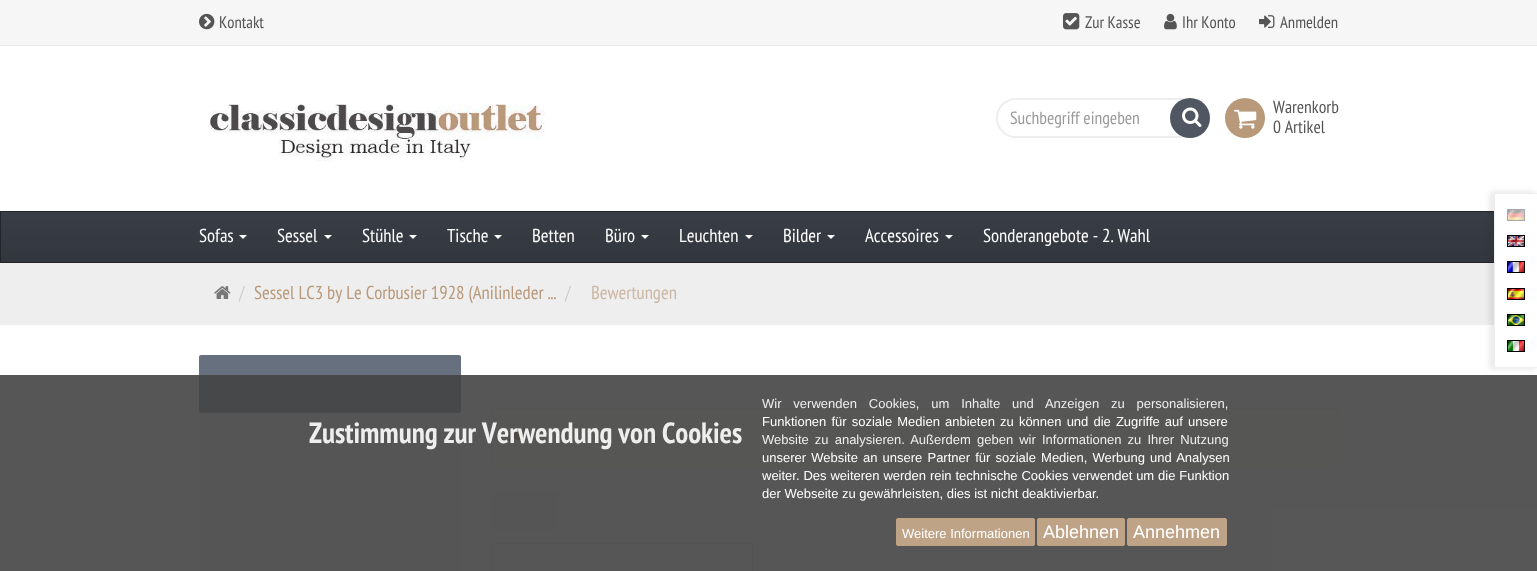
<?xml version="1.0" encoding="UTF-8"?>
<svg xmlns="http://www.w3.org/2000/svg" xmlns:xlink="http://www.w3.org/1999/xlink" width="1537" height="571">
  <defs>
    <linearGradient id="g1" gradientUnits="userSpaceOnUse" x1="769" y1="212" x2="769" y2="262"><stop offset="0" stop-color="#393e46" /><stop offset="1" stop-color="#32373e" /></linearGradient>
  </defs>
  <rect width="100%" height="100%" fill="#ffffff" />
  <rect width="1537" height="45" fill="#f6f6f6" />
  <rect y="45" width="1537" height="1" fill="#e9e9e9" />
  <image x="199" y="13" width="16" height="17" xlink:href="image1.png" />
  <image x="1063" y="13" width="17" height="17" xlink:href="image2.png" />
  <image x="1164" y="13" width="13" height="17" xlink:href="image3.png" />
  <image x="1259" y="15" width="16" height="13" xlink:href="image4.png" />
  <image x="209" y="104" width="336" height="58" xlink:href="image5.png" />
  <rect x="997" y="99" width="202" height="38" rx="19" fill="none" stroke="#eeeeee" stroke-width="2" />
  <circle cx="1190" cy="118" r="20" fill="#505762" />
  <image x="1182" y="107" width="20" height="20" xlink:href="image6.png" />
  <circle cx="1245" cy="118" r="20" fill="#b8997a" />
  <image x="1234" y="109" width="23" height="20" xlink:href="image7.png" />
  <rect x="1" y="212" width="1493" height="50" fill="url(#g1)" />
  <rect x="0.5" y="211.5" width="1536" height="51" fill="none" stroke="#22252a" />
  <path d="M 239 235 h 8 l -4 4 z" fill="#ffffff" />
  <path d="M 324 235 h 8 l -4 4 z" fill="#ffffff" />
  <path d="M 409 235 h 8 l -4 4 z" fill="#ffffff" />
  <path d="M 494 235 h 8 l -4 4 z" fill="#ffffff" />
  <path d="M 641 235 h 8 l -4 4 z" fill="#ffffff" />
  <path d="M 745 235 h 8 l -4 4 z" fill="#ffffff" />
  <path d="M 827 235 h 8 l -4 4 z" fill="#ffffff" />
  <path d="M 945 235 h 8 l -4 4 z" fill="#ffffff" />
  <rect y="263" width="1494" height="62" fill="#eeeeee" />
  <image x="214" y="286" width="17" height="13" xlink:href="image8.png" />
  <path d="M 201 355 h 258 c 1 0 2 1 2 2 v 214 c 0 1.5 -1.5 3 -3 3 h -256 c -1.5 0 -3 -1.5 -3 -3 v -214 c 0 -1 1 -2 2 -2 z" fill="#f4f4f4" />
  <rect x="199" y="355" width="262" height="58" rx="2" fill="#67707e" />
  <rect x="491.5" y="408.5" width="847" height="57" rx="1.5" fill="#fcf8e3" stroke="#faebcc" />
  <image x="505" y="427" width="20" height="16" xlink:href="image9.png" />
  <rect x="491" y="492" width="67" height="38" rx="2" fill="#eeeeee" />
  <rect x="491.5" y="543.5" width="261" height="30" rx="1.5" fill="none" stroke="#dddddd" />
  <rect x="1489" y="191" width="47" height="179" rx="4" fill="#000000" fill-opacity="0.08" filter="blur(2.5px)" />
  <path d="M 1496 193 h 41 v 175 h -41 c -1 0 -2 -1 -2 -2 v -171 c 0 -1 1 -2 2 -2 z" fill="#ffffff" />
  <rect x="1495" y="193" width="42" height="1" fill="#eeeeee" />
  <rect x="1495" y="367" width="42" height="1" fill="#eeeeee" />
  <rect x="1494" y="194" width="1" height="173" fill="#eeeeee" />
  <image x="1507" y="209" width="18" height="12" xlink:href="image10.png" />
  <image x="1507" y="235" width="18" height="12" xlink:href="image11.png" />
  <image x="1507" y="261" width="18" height="12" xlink:href="image12.png" />
  <image x="1507" y="288" width="18" height="12" xlink:href="image13.png" />
  <image x="1507" y="314" width="18" height="12" xlink:href="image14.png" />
  <image x="1507" y="340" width="18" height="12" xlink:href="image15.png" />
  <rect y="375" width="1537" height="196" fill="#444444" fill-opacity="0.9" />
  <rect x="896.5" y="518.5" width="138" height="27" rx="1.5" fill="#bfa387" stroke="#bfa387" />
  <rect x="1037.5" y="518.5" width="87" height="27" rx="1.5" fill="#bfa387" stroke="#bfa387" />
  <rect x="1127.5" y="518.5" width="99" height="27" rx="1.5" fill="#bfa387" stroke="#bfa387" />
  <text x="219" y="28" style="font-family: PT Sans Narrow; font-size: 16px; fill: #555555">Kontakt</text>
  <text x="1085" y="28" style="font-family: PT Sans Narrow; font-size: 16px; fill: #555555">Zur Kasse</text>
  <text x="1182" y="28" style="font-family: PT Sans Narrow; font-size: 16px; fill: #555555">Ihr Konto</text>
  <text x="1280" y="28" style="font-family: PT Sans Narrow; font-size: 16px; fill: #555555">Anmelden</text>
  <text x="1010" y="124" style="font-family: PT Sans Narrow; font-size: 17px; fill: #999999">Suchbegriff eingeben</text>
  <text x="1273" y="113" style="font-family: PT Sans Narrow; font-size: 17px; fill: #555555">Warenkorb</text>
  <text x="1273" y="133" style="font-family: PT Sans Narrow; font-size: 17px; fill: #555555">0 Artikel</text>
  <text x="199" y="242" style="font-family: PT Sans Narrow; font-size: 18px; fill: #ffffff">Sofas</text>
  <text x="277" y="242" style="font-family: PT Sans Narrow; font-size: 18px; fill: #ffffff">Sessel</text>
  <text x="362" y="242" style="font-family: PT Sans Narrow; font-size: 18px; fill: #ffffff">Stühle</text>
  <text x="447" y="242" style="font-family: PT Sans Narrow; font-size: 18px; fill: #ffffff">Tische</text>
  <text x="532" y="242" style="font-family: PT Sans Narrow; font-size: 18px; fill: #ffffff">Betten</text>
  <text x="605" y="242" style="font-family: PT Sans Narrow; font-size: 18px; fill: #ffffff">Büro</text>
  <text x="679" y="242" style="font-family: PT Sans Narrow; font-size: 18px; fill: #ffffff">Leuchten</text>
  <text x="783" y="242" style="font-family: PT Sans Narrow; font-size: 18px; fill: #ffffff">Bilder</text>
  <text x="865" y="242" style="font-family: PT Sans Narrow; font-size: 18px; fill: #ffffff">Accessoires</text>
  <text x="983" y="242" style="font-family: PT Sans Narrow; font-size: 18px; fill: #ffffff">Sonderangebote - 2. Wahl</text>
  <text x="239" y="299" style="font-family: PT Sans Narrow; font-size: 18px; fill: #cccccc">/</text>
  <text x="254" y="299" style="font-family: PT Sans Narrow; font-size: 18px; fill: #b8997a">Sessel LC3 by Le Corbusier 1928 (Anilinleder ...</text>
  <text x="565" y="299" style="font-family: PT Sans Narrow; font-size: 18px; fill: #cccccc">/</text>
  <text x="591" y="299" style="font-family: PT Sans Narrow; font-size: 18px; fill: #cbb7a3">Bewertungen</text>
  <text x="309" y="443" style="font-family: PT Sans Narrow; font-size: 28px; font-weight: bold; fill: #eeeeee">Zustimmung zur Verwendung von Cookies</text>
  <text x="762" y="408" word-spacing="8.25" style="font-family: Liberation Sans; font-size: 13px; fill: #eeeeee">Wir verwenden Cookies, um Inhalte und Anzeigen zu personalisieren,</text>
  <text x="762" y="426" word-spacing="1.5" style="font-family: Liberation Sans; font-size: 13px; fill: #ffffff">Funktionen für soziale Medien anbieten zu können und die Zugriffe auf unsere</text>
  <text x="762" y="444" word-spacing="2.5" style="font-family: Liberation Sans; font-size: 13px; fill: #eeeeee">Website zu analysieren. Außerdem geben wir Informationen zu Ihrer Nutzung</text>
  <text x="762" y="462" word-spacing="1.5" style="font-family: Liberation Sans; font-size: 13px; fill: #ffffff">unserer Website an unsere Partner für soziale Medien, Werbung und Analysen</text>
  <text x="762" y="480" word-spacing="0.25" style="font-family: Liberation Sans; font-size: 13px; fill: #ffffff">weiter. Des weiteren werden rein technische Cookies verwendet um die Funktion</text>
  <text x="762" y="498" style="font-family: Liberation Sans; font-size: 13px; fill: #ffffff">der Webseite zu gewährleisten, dies ist nicht deaktivierbar.</text>
  <text x="902" y="538" style="font-family: Liberation Sans; font-size: 13px; fill: #ffffff">Weitere Informationen</text>
  <text x="1043" y="538" style="font-family: Liberation Sans; font-size: 18px; fill: #ffffff">Ablehnen</text>
  <text x="1133" y="538" style="font-family: Liberation Sans; font-size: 18px; fill: #ffffff">Annehmen</text>
</svg>
